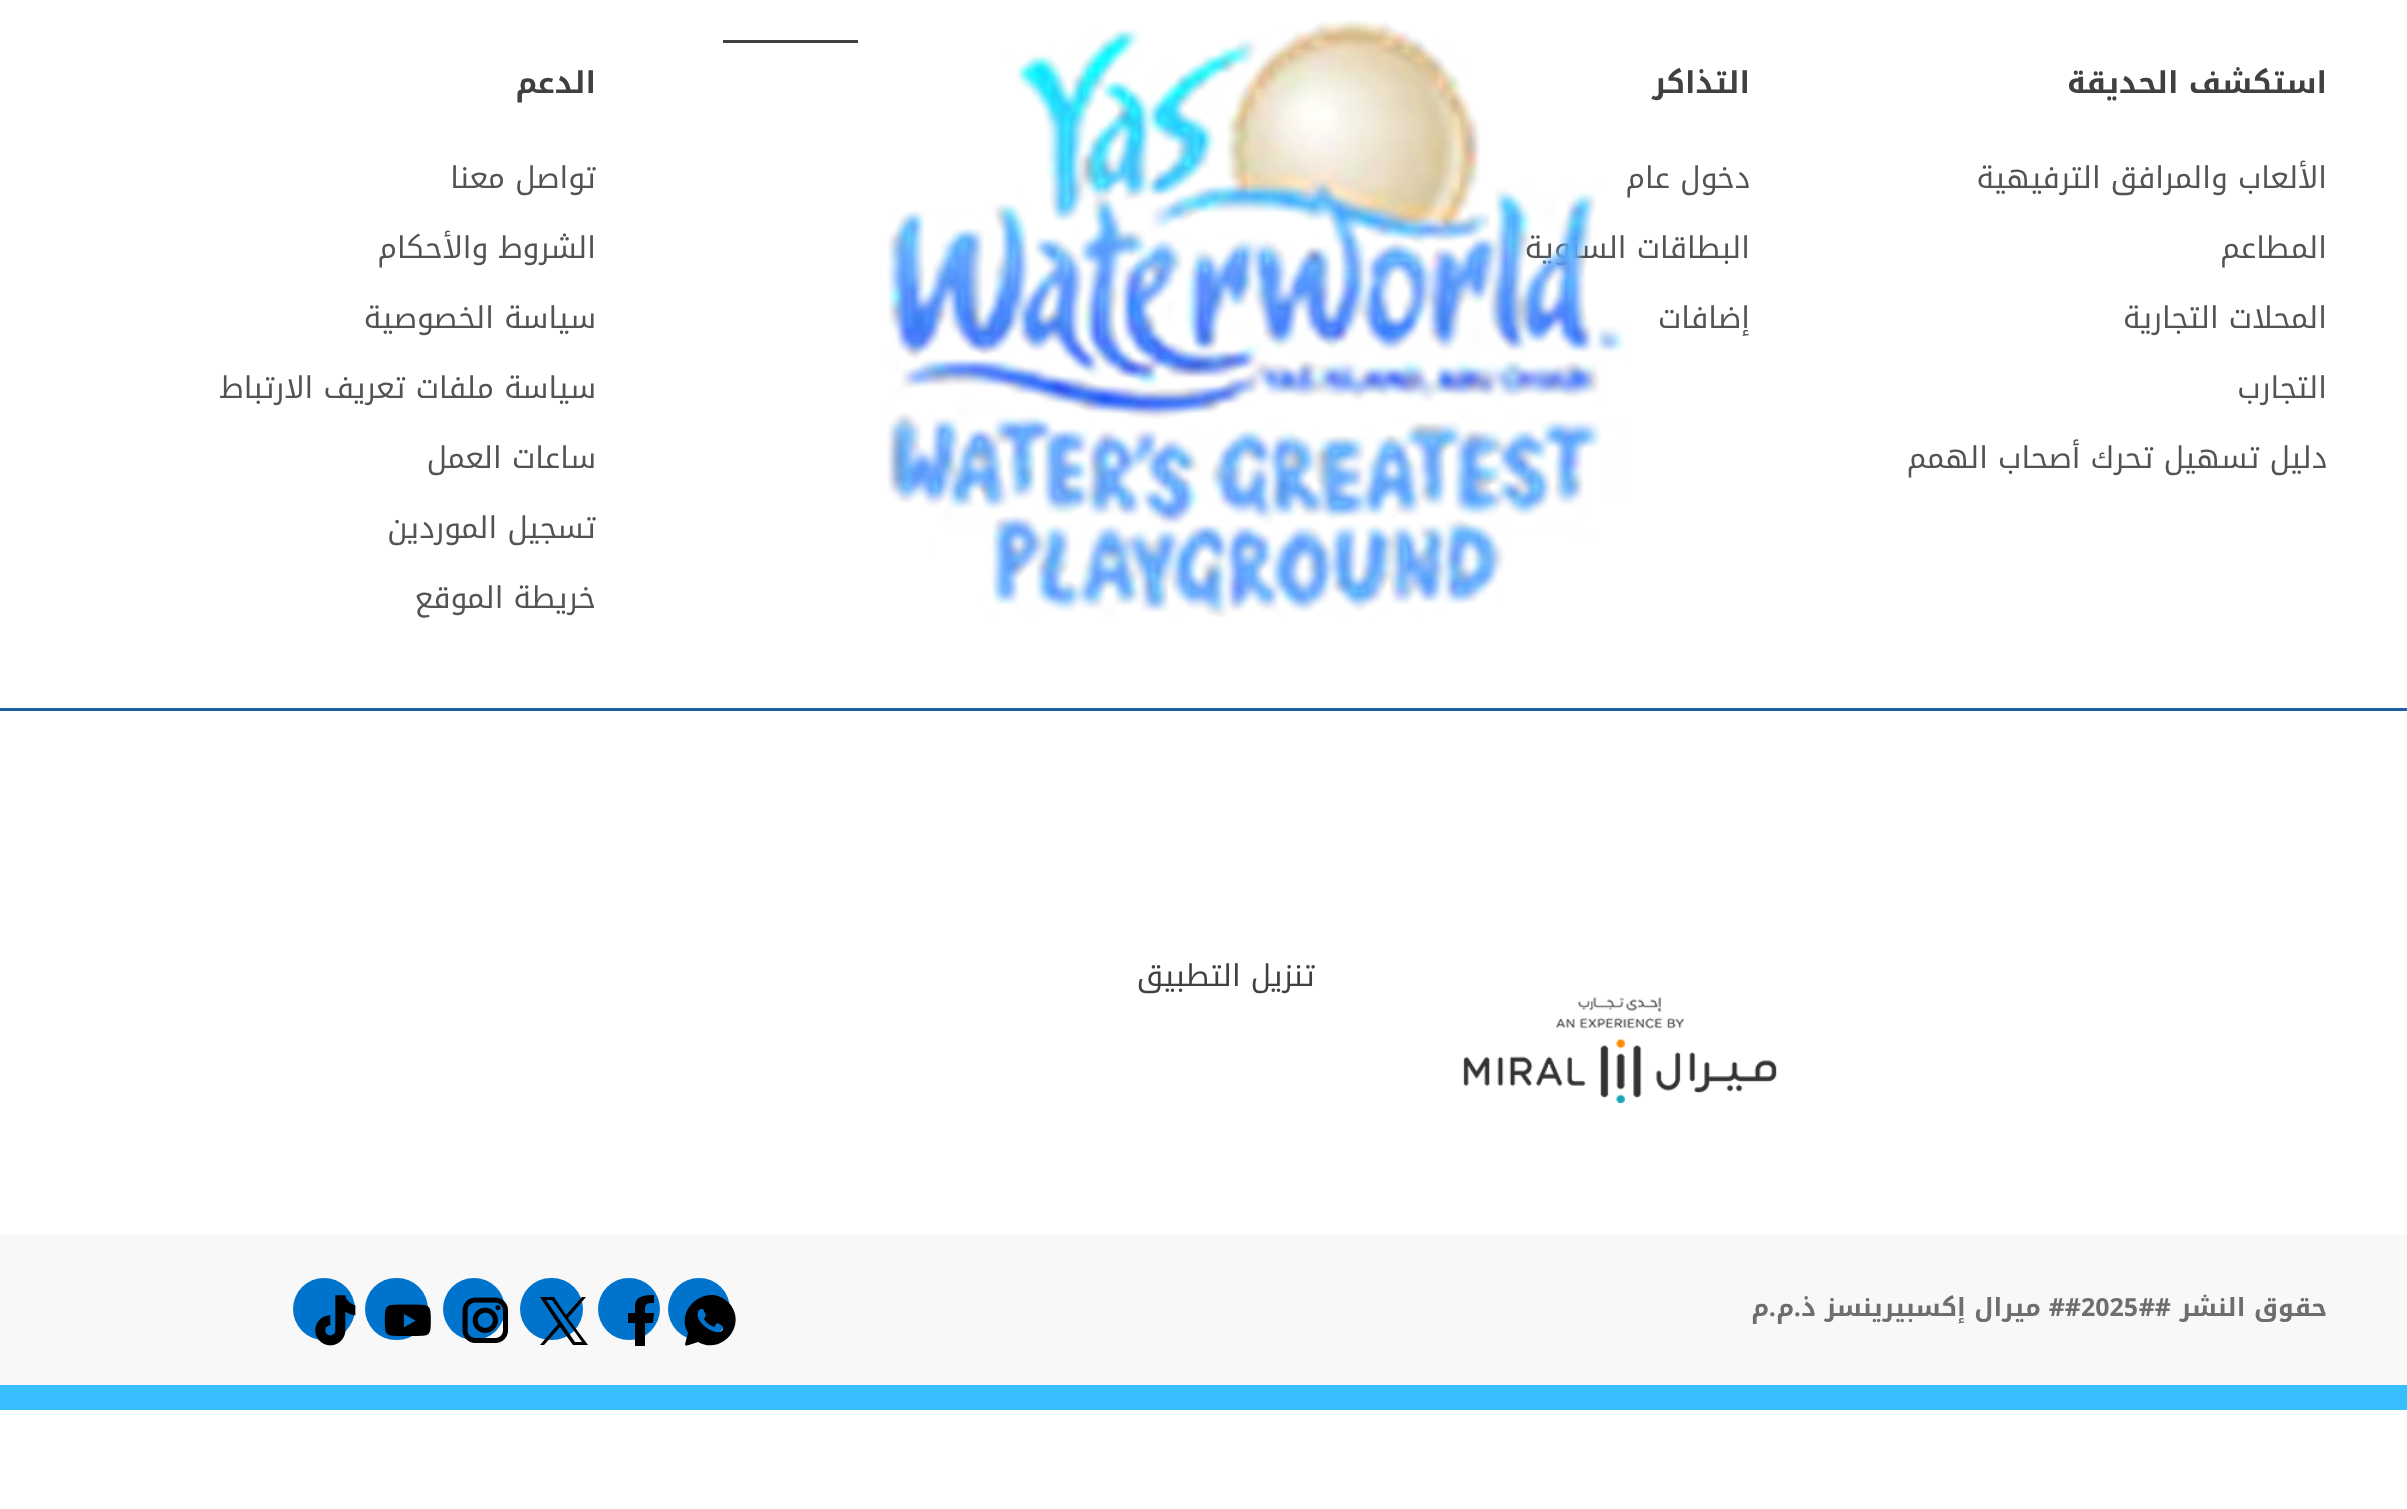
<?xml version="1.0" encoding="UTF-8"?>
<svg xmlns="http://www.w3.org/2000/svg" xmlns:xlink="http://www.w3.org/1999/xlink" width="2407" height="1509">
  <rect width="100%" height="100%" fill="#ffffff" />
  <rect x="723" y="40" width="135" height="3" fill="#404040" />
  <rect y="708" width="2407" height="3" fill="#1c60a3" />
  <image x="1463" y="997" width="314" height="107" xlink:href="image2.png" />
  <rect y="1235" width="2407" height="150" fill="#f8f8f8" />
  <rect y="1385" width="2407" height="25" fill="#38bfff" />
  <circle cx="699" cy="1309" r="31" fill="#0073cd" />
  <path d="M 728 1302 c -20 -20 -54 6 -40 31 c -4 16 -6 14 10 9 c 25 14 51 -19 30 -40 z m -5 27 c -4 10 -29 -6 -25 -17 l 1 -2 l 2 -1 h 2 l 3 6 l -2 4 c 1 2 4 5 6 6 l 4 2 l 3 -4 c 1 0 6 3 6 4 z" fill="#000000" fill-rule="evenodd" />
  <circle cx="629" cy="1309" r="31" fill="#0073cd" />
  <path d="M 654 1313 h -9 c 0 -9 0 -10 9 -10 v -8 c -7 0 -17 0 -19 9 v 9 h -7 v 10 h 7 v 23 h 10 v -23 h 8 z" fill="#000000" fill-rule="evenodd" />
  <rect x="520" y="1278" width="63" height="62" rx="31" fill="#0073cd" />
  <path d="M 568 1318 l 18 -21 h -4 l -16 18 l -12 -18 h -14 l 18 27 l -18 21 h 4 l 16 -18 l 13 18 h 15 z m -22 -18 h 6 l 30 42 h -7 z" fill="#000000" fill-rule="evenodd" />
  <circle cx="474" cy="1309" r="31" fill="#0073cd" />
  <image x="462" y="1297" width="47" height="46" xlink:href="image3.png" />
  <rect x="365" y="1278" width="63" height="62" rx="31" fill="#0073cd" />
  <image x="384" y="1304" width="47" height="33" xlink:href="image4.png" />
  <circle cx="324" cy="1309" r="31" fill="#0073cd" />
  <image x="315" y="1295" width="41" height="51" xlink:href="image5.png" />
  <text x="2327" y="93" style="font-family: Noto Kufi Arabic; font-size: 30px; font-weight: bold; direction: rtl; fill: #404040">استكشف الحديقة</text>
  <text x="2327" y="188" style="font-family: Noto Kufi Arabic; font-size: 30px; direction: rtl; fill: #535353">الألعاب والمرافق الترفيهية</text>
  <text x="2327" y="258" style="font-family: Noto Kufi Arabic; font-size: 30px; direction: rtl; fill: #535353">المطاعم</text>
  <text x="2327" y="328" style="font-family: Noto Kufi Arabic; font-size: 30px; direction: rtl; fill: #535353">المحلات التجارية</text>
  <text x="2327" y="398" style="font-family: Noto Kufi Arabic; font-size: 30px; direction: rtl; fill: #535353">التجارب</text>
  <text x="2327" y="468" style="font-family: Noto Kufi Arabic; font-size: 30px; direction: rtl; fill: #535353">دليل تسهيل تحرك أصحاب الهمم</text>
  <text x="1750" y="93" style="font-family: Noto Kufi Arabic; font-size: 30px; font-weight: bold; direction: rtl; fill: #404040">التذاكر</text>
  <text x="1750" y="188" style="font-family: Noto Kufi Arabic; font-size: 30px; direction: rtl; fill: #535353">دخول عام</text>
  <text x="1750" y="258" style="font-family: Noto Kufi Arabic; font-size: 30px; direction: rtl; fill: #535353">البطاقات السنوية</text>
  <image x="887" y="20" width="738" height="597" xlink:href="image1.png" />
  <text x="1750" y="328" style="font-family: Noto Kufi Arabic; font-size: 30px; direction: rtl; fill: #535353">إضافات</text>
  <text x="596" y="93" style="font-family: Noto Kufi Arabic; font-size: 30px; font-weight: bold; direction: rtl; fill: #404040">الدعم</text>
  <text x="596" y="188" style="font-family: Noto Kufi Arabic; font-size: 30px; direction: rtl; fill: #535353">تواصل معنا</text>
  <text x="596" y="258" style="font-family: Noto Kufi Arabic; font-size: 30px; direction: rtl; fill: #535353">الشروط والأحكام</text>
  <text x="596" y="328" style="font-family: Noto Kufi Arabic; font-size: 30px; direction: rtl; fill: #535353">سياسة الخصوصية</text>
  <text x="596" y="398" style="font-family: Noto Kufi Arabic; font-size: 30px; direction: rtl; fill: #535353">سياسة ملفات تعريف الارتباط</text>
  <text x="596" y="468" style="font-family: Noto Kufi Arabic; font-size: 30px; direction: rtl; fill: #535353">ساعات العمل</text>
  <text x="596" y="538" style="font-family: Noto Kufi Arabic; font-size: 30px; direction: rtl; fill: #535353">تسجيل الموردين</text>
  <text x="596" y="608" style="font-family: Noto Kufi Arabic; font-size: 30px; direction: rtl; fill: #535353">خريطة الموقع</text>
  <text x="1315" y="986" style="font-family: Noto Kufi Arabic; font-size: 30px; direction: rtl; fill: #404040">تنزيل التطبيق</text>
  <text x="2327" y="1316" style="font-family: Noto Kufi Arabic; font-size: 25px; font-weight: bold; direction: rtl; fill: #6e6e6e">حقوق النشر</text>
  <text x="2171" y="1316" style="font-family: Open Sans; font-size: 25px; font-weight: bold; direction: rtl; fill: #6e6e6e">##</text>
  <text x="2081" y="1316" style="font-family: Open Sans; font-size: 25px; font-weight: bold; fill: #6e6e6e">2025</text>
  <text x="2081" y="1316" style="font-family: Open Sans; font-size: 25px; font-weight: bold; direction: rtl; fill: #6e6e6e">##</text>
  <text x="2041" y="1316" style="font-family: Noto Kufi Arabic; font-size: 25px; font-weight: bold; direction: rtl; fill: #6e6e6e">ميرال إكسبيرينسز ذ</text>
  <text x="1801" y="1316" style="font-family: Open Sans; font-size: 25px; font-weight: bold; direction: rtl; fill: #6e6e6e">.</text>
  <text x="1794" y="1316" style="font-family: Noto Kufi Arabic; font-size: 25px; font-weight: bold; direction: rtl; fill: #6e6e6e">م</text>
  <text x="1776" y="1316" style="font-family: Open Sans; font-size: 25px; font-weight: bold; direction: rtl; fill: #6e6e6e">.</text>
  <text x="1769" y="1316" style="font-family: Noto Kufi Arabic; font-size: 25px; font-weight: bold; direction: rtl; fill: #6e6e6e">م</text>
</svg>
